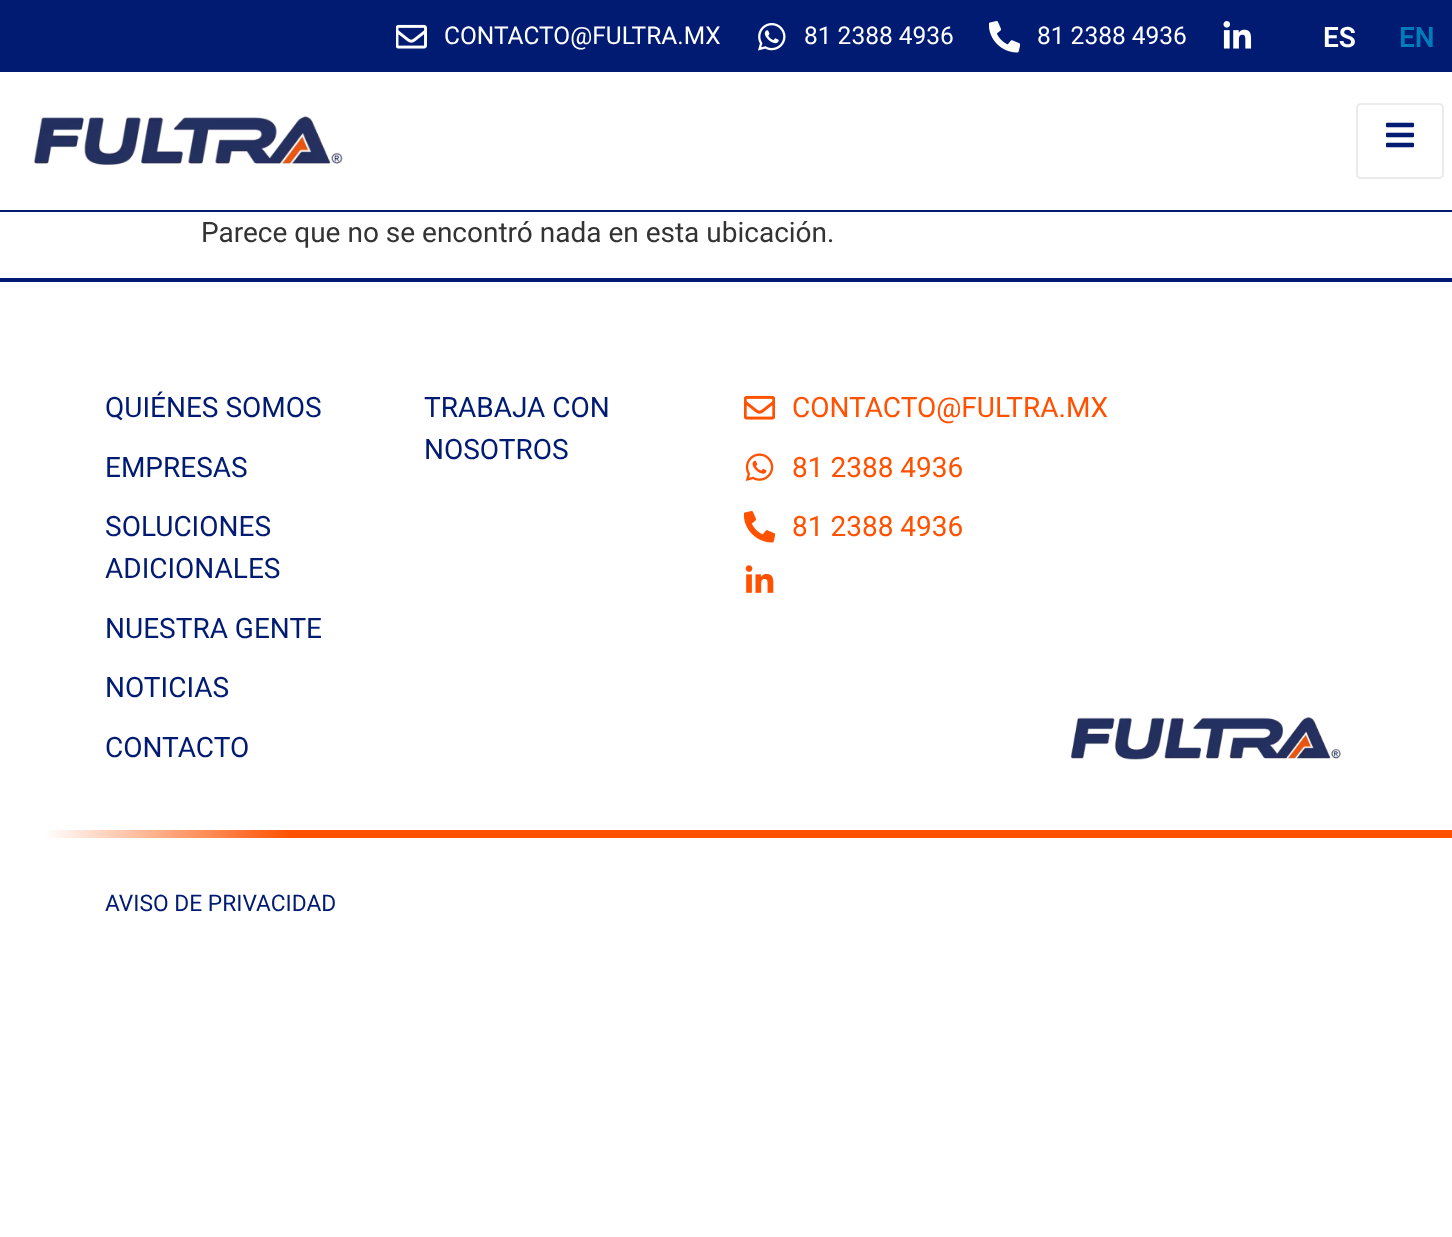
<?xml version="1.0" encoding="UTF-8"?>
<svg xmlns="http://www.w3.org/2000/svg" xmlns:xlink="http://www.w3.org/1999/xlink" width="1452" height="1237">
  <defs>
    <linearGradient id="g1" gradientUnits="userSpaceOnUse" x1="0" y1="834" x2="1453" y2="834"><stop offset="0.03" stop-color="#ffffff" /><stop offset="0.2" stop-color="#ff5100" /></linearGradient>
  </defs>
  <rect width="100%" height="100%" fill="#ffffff" />
  <rect width="1452" height="72" fill="#001b71" />
  <image x="396" y="24" width="31" height="25" xlink:href="image1.png" />
  <image x="758" y="23" width="28" height="28" xlink:href="image2.png" />
  <image x="989" y="21" width="31" height="32" xlink:href="image3.png" />
  <image x="1223" y="21" width="29" height="28" xlink:href="image4.png" />
  <rect y="210" width="1452" height="2" fill="#001b71" />
  <image x="34" y="116" width="309" height="49" xlink:href="image5.png" />
  <rect x="1357" y="104" width="86" height="74" rx="4" fill="none" stroke="#eaeaeb" stroke-width="2" />
  <image x="1386" y="122" width="28" height="26" xlink:href="image6.png" />
  <rect y="278" width="1452" height="4" fill="#001b71" />
  <image x="744" y="395" width="31" height="25" xlink:href="image7.png" />
  <image x="745" y="453" width="29" height="28" xlink:href="image8.png" />
  <image x="744" y="511" width="31" height="32" xlink:href="image9.png" />
  <image x="745" y="565" width="29" height="28" xlink:href="image10.png" />
  <image x="1070" y="717" width="271" height="43" xlink:href="image11.png" />
  <rect x="46" y="830" width="1406" height="8" fill="url(#g1)" />
  <text x="444" y="44" style="font-family: Roboto; font-size: 24.5px; fill: #ffffff">CONTACTO@FULTRA.MX</text>
  <text x="804" y="44" style="font-family: Roboto; font-size: 24.5px; fill: #ffffff">81 2388 4936</text>
  <text x="1037" y="44" style="font-family: Roboto; font-size: 24.5px; fill: #ffffff">81 2388 4936</text>
  <text x="1323" y="47" style="font-family: Roboto; font-size: 28px; font-weight: 600; fill: #ffffff">ES</text>
  <text x="1399" y="47" style="font-family: Roboto; font-size: 28px; font-weight: 600; fill: #007cba">EN</text>
  <text x="201" y="242" style="font-family: Roboto; font-size: 28px; fill: #333333">Parece que no se encontró nada en esta ubicación.</text>
  <text x="105" y="417" style="font-family: Roboto; font-size: 28px; fill: #001b71">QUIÉNES SOMOS</text>
  <text x="105" y="477" style="font-family: Roboto; font-size: 28px; fill: #001b71">EMPRESAS</text>
  <text x="105" y="536" style="font-family: Roboto; font-size: 28px; fill: #001b71">SOLUCIONES</text>
  <text x="105" y="578" style="font-family: Roboto; font-size: 28px; fill: #001b71">ADICIONALES</text>
  <text x="105" y="638" style="font-family: Roboto; font-size: 28px; fill: #001b71">NUESTRA GENTE</text>
  <text x="105" y="697" style="font-family: Roboto; font-size: 28px; fill: #001b71">NOTICIAS</text>
  <text x="105" y="757" style="font-family: Roboto; font-size: 28px; fill: #001b71">CONTACTO</text>
  <text x="424" y="417" style="font-family: Roboto; font-size: 28px; fill: #001b71">TRABAJA CON</text>
  <text x="424" y="459" style="font-family: Roboto; font-size: 28px; fill: #001b71">NOSOTROS</text>
  <text x="792" y="417" style="font-family: Roboto; font-size: 28px; fill: #ff5100">CONTACTO@FULTRA.MX</text>
  <text x="792" y="477" style="font-family: Roboto; font-size: 28px; fill: #ff5100">81 2388 4936</text>
  <text x="792" y="536" style="font-family: Roboto; font-size: 28px; fill: #ff5100">81 2388 4936</text>
  <text x="105" y="911" style="font-family: Roboto; font-size: 22.75px; fill: #001b71">AVISO DE PRIVACIDAD</text>
</svg>
